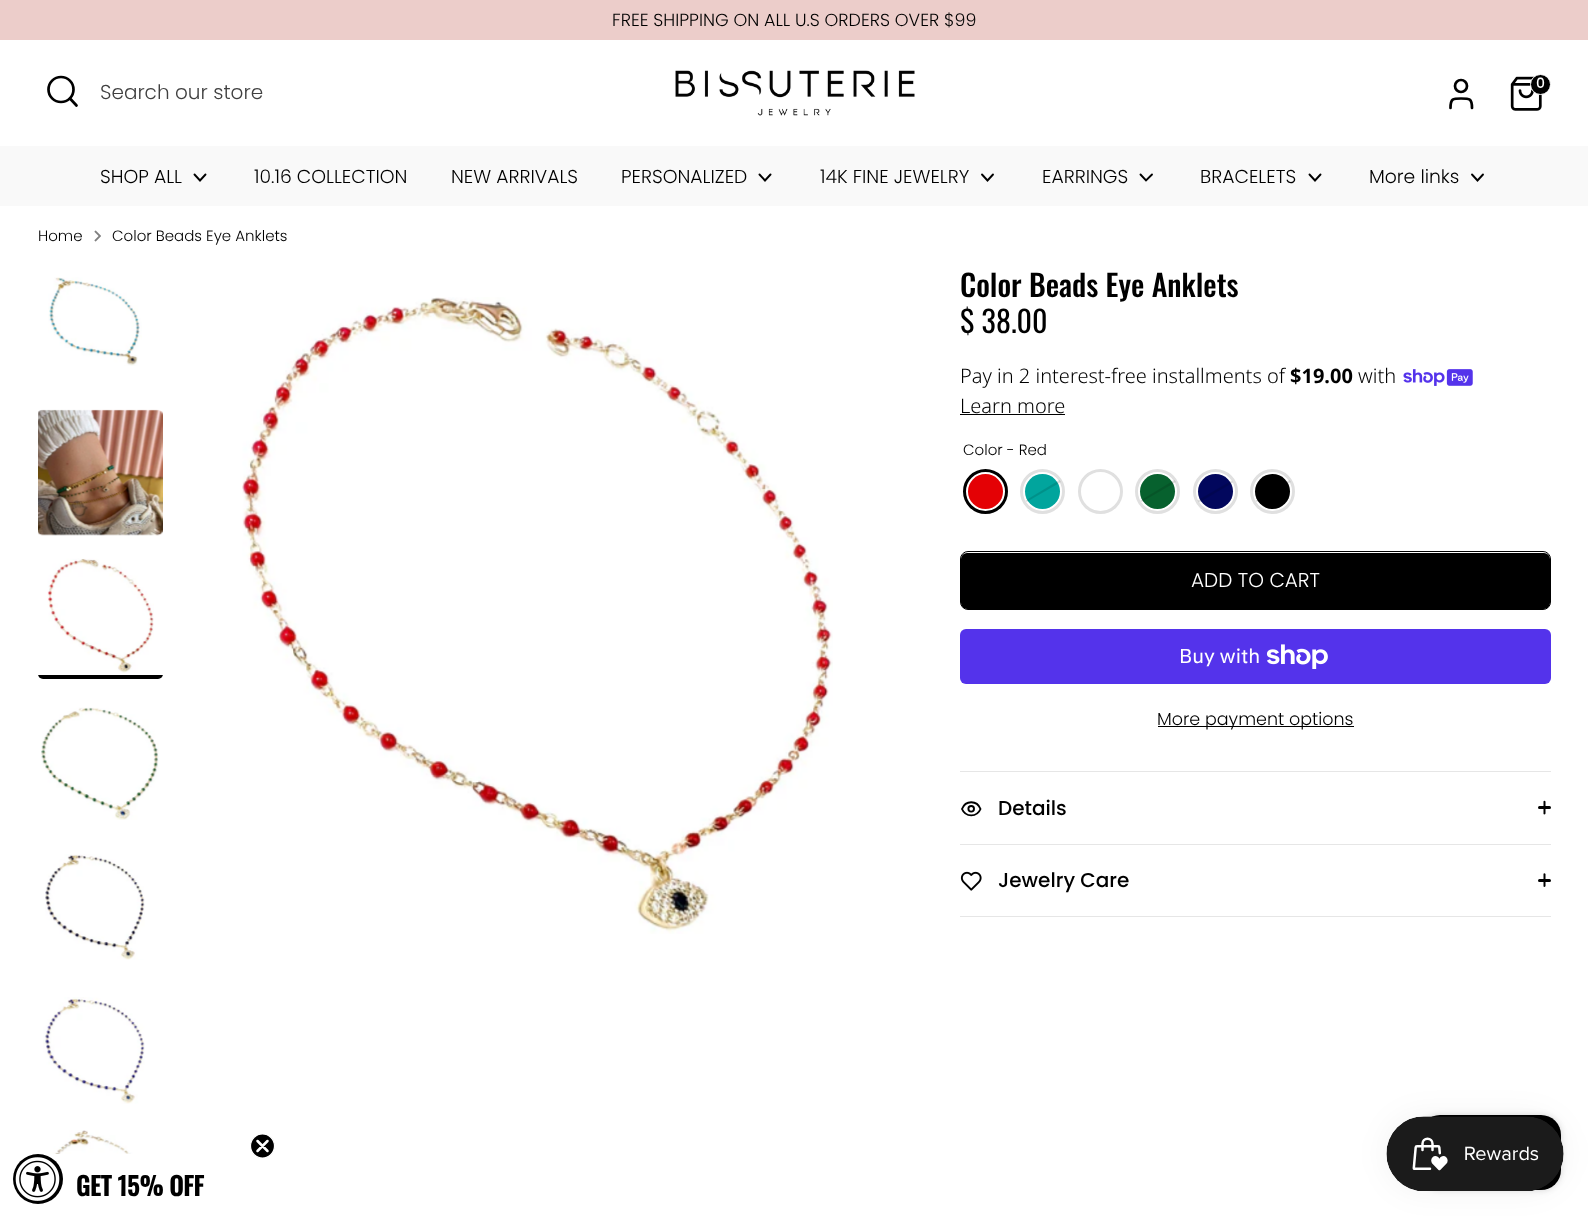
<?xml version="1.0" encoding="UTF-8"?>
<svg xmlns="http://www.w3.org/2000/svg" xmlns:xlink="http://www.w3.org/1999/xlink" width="1588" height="1216">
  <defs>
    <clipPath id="clip1"><rect x="38" y="554" width="125" height="125" rx="5" /></clipPath>
    <clipPath id="clip2"><rect x="250" y="1134" width="25" height="25" /></clipPath>
  </defs>
  <rect width="100%" height="100%" fill="#ffffff" />
  <rect width="1588" height="40" fill="#eccdca" />
  <image x="675" y="70" width="240" height="46" xlink:href="image1.png" />
  <path d="M 1472 108 c 0 -9.5 -2.5 -9.5 -11 -9.5 c -8 0 -10.5 0 -10.5 9.5" fill="none" stroke="#000000" stroke-width="2.7" stroke-linecap="round" stroke-linejoin="round" />
  <circle cx="1461" cy="86" r="6" fill="none" stroke="#000000" stroke-width="2.7" />
  <image x="1510" y="76" width="32" height="35" xlink:href="image2.png" />
  <circle cx="1540.5" cy="84.5" r="10" fill="#000000" stroke="#ffffff" />
  <circle cx="61" cy="89.5" r="12.5" fill="none" stroke="#000000" stroke-width="2.7" />
  <path d="M 76.5 105.5 l -6.5 -7" fill="none" stroke="#000000" stroke-width="2.7" stroke-linecap="round" stroke-linejoin="round" />
  <rect y="146" width="1588" height="60" fill="#f9f9f9" />
  <path d="M 194.5 174.5 l 5.5 6 l 5.5 -6" fill="none" stroke="#000000" stroke-width="1.9" stroke-linecap="round" />
  <path d="M 759.5 174.5 l 5.5 6 l 5.5 -6" fill="none" stroke="#000000" stroke-width="1.9" stroke-linecap="round" />
  <path d="M 982 174.5 l 5.5 6 l 5.5 -6" fill="none" stroke="#000000" stroke-width="1.9" stroke-linecap="round" />
  <path d="M 1140.5 174.5 l 5.5 6 l 6 -6" fill="none" stroke="#000000" stroke-width="1.9" stroke-linecap="round" />
  <path d="M 1309.5 174.5 l 5.5 6 l 5.5 -6" fill="none" stroke="#000000" stroke-width="1.9" stroke-linecap="round" />
  <path d="M 1472 174.5 l 5.5 6 l 5.5 -6" fill="none" stroke="#000000" stroke-width="1.9" stroke-linecap="round" />
  <image x="94" y="230" width="7" height="12" xlink:href="image3.png" />
  <image x="48" y="277" width="94" height="89" xlink:href="image4.png" />
  <image x="38" y="409" width="125" height="127" xlink:href="image5.png" />
  <image x="47" y="558" width="107" height="115" xlink:href="image6.png" />
  <g clip-path="url(#clip1)">
    <rect x="38" y="675" width="125" height="4" fill="#000000" />
  </g>
  <image x="41" y="707" width="118" height="113" xlink:href="image7.png" />
  <image x="45" y="854" width="100" height="106" xlink:href="image8.png" />
  <image x="43" y="997" width="102" height="107" xlink:href="image9.png" />
  <image x="45" y="1130" width="104" height="24" xlink:href="image10.png" />
  <image x="242" y="297" width="591" height="637" xlink:href="image11.png" />
  <image x="1403" y="369" width="70" height="17" xlink:href="image12.png" />
  <rect x="960" y="414" width="105" height="1" fill="#000000" />
  <circle cx="985.5" cy="491.5" r="21" fill="none" stroke="#000000" stroke-width="3" />
  <circle cx="985.5" cy="491.5" r="17.5" fill="#e40105" />
  <circle cx="1042.5" cy="491.5" r="21" fill="none" stroke="#e0e0e0" stroke-width="3" />
  <circle cx="1042.5" cy="491.5" r="17.5" fill="#01a59d" />
  <path d="M 1026.5 502 l -1 -1.5 l 34 -20.5 l 1.5 2 z" fill="#000000" fill-opacity="0.12" />
  <circle cx="1100.5" cy="491.5" r="21" fill="none" stroke="#e0e0e0" stroke-width="3" />
  <circle cx="1157.5" cy="491.5" r="21" fill="none" stroke="#e0e0e0" stroke-width="3" />
  <circle cx="1157.5" cy="491.5" r="17.5" fill="#07612e" />
  <path d="M 1141.5 502 l -1 -1.5 l 34 -20.5 l 1.5 2 z" fill="#000000" fill-opacity="0.12" />
  <circle cx="1215.5" cy="491.5" r="21" fill="none" stroke="#e0e0e0" stroke-width="3" />
  <circle cx="1215.5" cy="491.5" r="17.5" fill="#02075d" />
  <path d="M 1199 502.5 l -1.5 -2 l 34.5 -20 l 1 2 z" fill="#000000" fill-opacity="0.12" />
  <circle cx="1272.5" cy="491.5" r="21" fill="none" stroke="#e0e0e0" stroke-width="3" />
  <circle cx="1272.5" cy="491.5" r="17.5" fill="#000000" />
  <path d="M 1256.5 502 l -1 -1.5 l 34 -20.5 l 1.5 2 z" fill="#000000" fill-opacity="0.12" />
  <rect x="960.5" y="551.5" width="590" height="58" rx="7.5" fill="none" stroke="#000000" />
  <rect x="961" y="553" width="589" height="56" rx="6" fill="#000000" />
  <rect x="960" y="629" width="591" height="55" rx="6" fill="#5433eb" />
  <image x="1266" y="644" width="62" height="25" xlink:href="image13.png" />
  <rect x="1158" y="726" width="196" height="1" fill="#000000" />
  <rect x="960" y="771" width="591" height="1" fill="#e6e6e6" />
  <rect x="960" y="844" width="591" height="1" fill="#e6e6e6" />
  <path d="M 962 809 c 3.5 -9 15 -9 18.5 0 c -3.5 8.5 -15 8.5 -18.5 0 z" fill="none" stroke="#000000" stroke-width="1.9" stroke-linecap="round" stroke-linejoin="round" />
  <circle cx="971.2" cy="808.8" r="2.8" fill="none" stroke="#000000" stroke-width="1.9" />
  <path d="M 1543.5 813.5 v -12 c 0 -1 1.5 -1 2 0 v 12 c -0.5 1.5 -2 1 -2 0 z" fill="#000000" />
  <rect x="1538" y="806" width="13" height="3" rx="1.5" fill="#000000" />
  <rect x="960" y="916" width="591" height="1" fill="#e6e6e6" />
  <image x="960" y="871" width="22" height="20" xlink:href="image14.png" />
  <path d="M 1543.5 886 v -12 c 0 -1 1.5 -1 2 0 v 12 c -0.5 1.5 -2 1 -2 0 z" fill="#000000" />
  <rect x="1538" y="879" width="13" height="3" rx="1.5" fill="#000000" />
  <rect x="1420" y="1115" width="141" height="75" rx="20" fill="#000000" fill-opacity="0.15" filter="blur(3px)" />
  <rect x="1420" y="1115" width="141" height="75" rx="20" fill="#000000" />
  <rect x="1386" y="1116" width="178" height="75" rx="37.5" fill="#000000" fill-opacity="0.05" filter="blur(15.5px)" />
  <image x="1386" y="1116" width="178" height="75" xlink:href="image15.png" />
  <circle cx="38" cy="1179" r="25" fill="#000000" />
  <image x="15" y="1157" width="45" height="44" xlink:href="image16.png" />
  <circle cx="262.5" cy="1146" r="12" fill="#000000" />
  <g clip-path="url(#clip2)">
    <circle cx="262.5" cy="1146" r="12" fill="none" stroke="#ffffff" stroke-width="1.2" />
  </g>
  <path d="M 257.5 1141 l 10 10 m -10 0 l 10 -10 z" fill="none" stroke="#ffffff" stroke-width="2.5" stroke-linecap="round" stroke-linejoin="round" />
  <text x="612" y="26" style="font-family: Poppins; font-size: 17.5px; font-weight: 300; fill: #000000">FREE SHIPPING ON ALL U.S ORDERS OVER $99</text>
  <text x="1536" y="88" style="font-family: Poppins; font-size: 14px; font-weight: 500; fill: #ffffff">0</text>
  <text x="100" y="99" style="font-family: Poppins; font-size: 20px; font-weight: 300; fill: #404040">Search our store</text>
  <text x="100" y="183" style="font-family: Poppins; font-size: 18.75px; font-weight: 300; fill: #000000">SHOP ALL</text>
  <text x="254" y="183" style="font-family: Poppins; font-size: 18.75px; font-weight: 300; fill: #000000">10.16 COLLECTION</text>
  <text x="451" y="183" style="font-family: Poppins; font-size: 18.75px; font-weight: 300; fill: #000000">NEW ARRIVALS</text>
  <text x="621" y="183" style="font-family: Poppins; font-size: 18.75px; font-weight: 300; fill: #000000">PERSONALIZED</text>
  <text x="820" y="183" style="font-family: Poppins; font-size: 18.75px; font-weight: 300; fill: #000000">14K FINE JEWELRY</text>
  <text x="1042" y="183" style="font-family: Poppins; font-size: 18.75px; font-weight: 300; fill: #000000">EARRINGS</text>
  <text x="1200" y="183" style="font-family: Poppins; font-size: 18.75px; font-weight: 300; fill: #000000">BRACELETS</text>
  <text x="1369" y="183" style="font-family: Poppins; font-size: 18.75px; font-weight: 300; fill: #000000">More links</text>
  <text x="38" y="241" style="font-family: Poppins; font-size: 15px; font-weight: 300; fill: #000000">Home</text>
  <text x="112" y="241" style="font-family: Poppins; font-size: 15px; font-weight: 300; fill: #000000">Color Beads Eye Anklets</text>
  <text x="960" y="297" style="font-family: Oswald; font-size: 30px; font-weight: 500; fill: #000000">Color Beads Eye Anklets</text>
  <text x="960" y="333" style="font-family: Oswald; font-size: 30px; fill: #000000">$ 38.00</text>
  <text x="960" y="383" style="font-family: Noto Sans; font-size: 20px; font-weight: 300; fill: #000000">Pay in 2 interest-free installments of</text>
  <text x="1290" y="383" style="font-family: Noto Sans; font-size: 20px; font-weight: bold; fill: #000000">$19.00</text>
  <text x="1358" y="383" style="font-family: Noto Sans; font-size: 20px; font-weight: 300; fill: #000000">with</text>
  <text x="960" y="413" style="font-family: Noto Sans; font-size: 20px; font-weight: 300; fill: #000000">Learn more</text>
  <text x="963" y="455" style="font-family: Poppins; font-size: 15px; font-weight: 300; fill: #000000">Color - Red</text>
  <text x="1191" y="587" style="font-family: Poppins; font-size: 20px; font-weight: 300; fill: #ffffff">ADD TO CART</text>
  <text x="1179" y="663" style="font-family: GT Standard; font-size: 20px; fill: #ffffff">Buy with</text>
  <text x="1157" y="725" style="font-family: Poppins; font-size: 17.5px; font-weight: 300; fill: #000000">More payment options</text>
  <text x="998" y="815" style="font-family: Poppins; font-size: 20px; font-weight: 500; fill: #000000">Details</text>
  <text x="998" y="887" style="font-family: Poppins; font-size: 20px; font-weight: 500; fill: #000000">Jewelry Care</text>
  <text x="76" y="1196" style="font-family: Oswald; font-size: 25px; font-weight: bold; fill: #000000">GET 15% OFF</text>
</svg>
